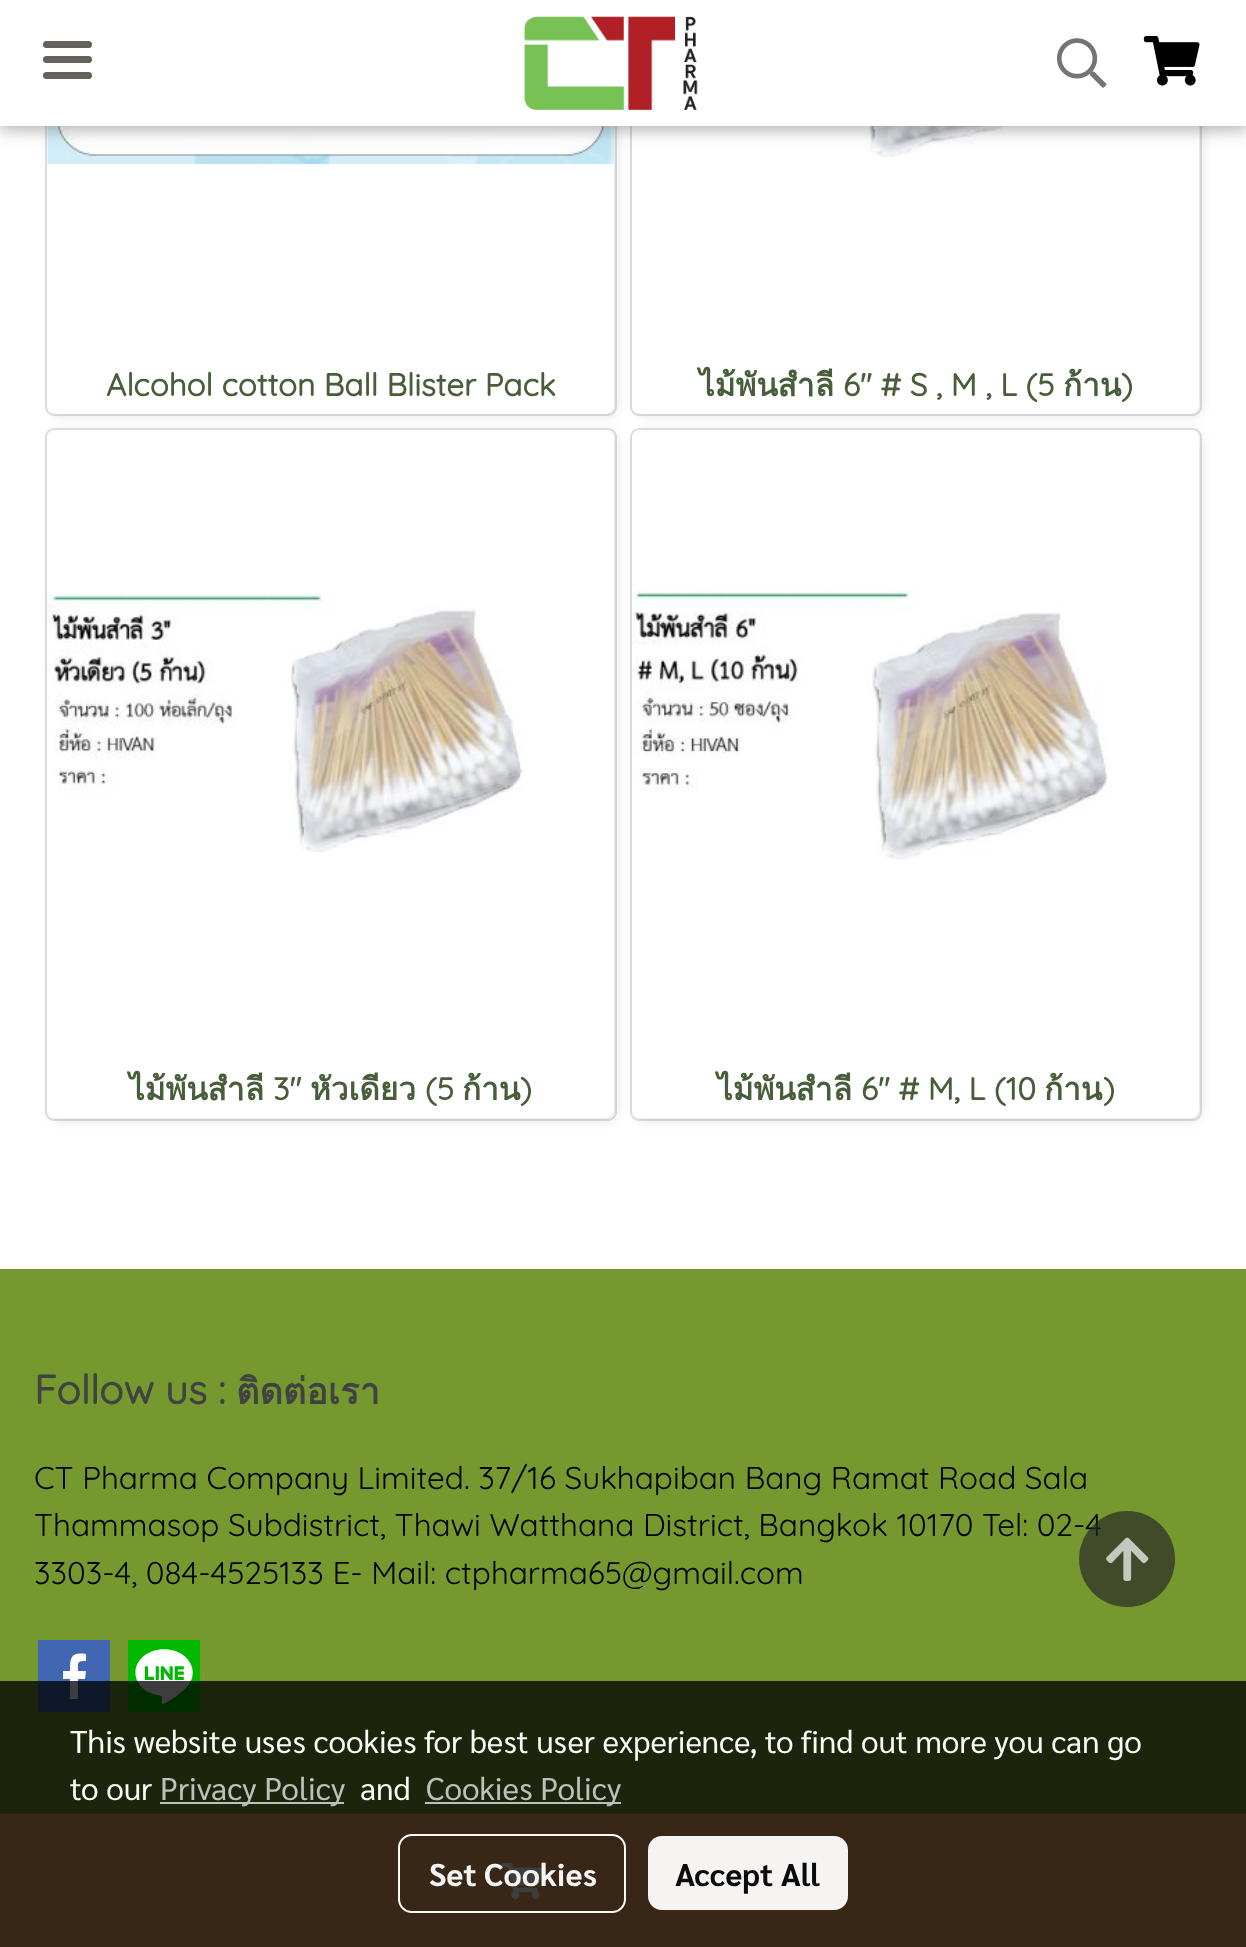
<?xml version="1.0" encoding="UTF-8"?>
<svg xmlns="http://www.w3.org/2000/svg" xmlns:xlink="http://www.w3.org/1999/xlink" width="1246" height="1947">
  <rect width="100%" height="100%" fill="#ffffff" />
  <rect x="46" y="-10" width="570" height="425" rx="8" fill="none" stroke="#dee2e6" stroke-width="2" />
  <rect x="50" y="-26" width="567" height="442" rx="9" fill="#000000" fill-opacity="0.1" filter="blur(5.5px)" />
  <rect x="47" y="-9" width="567" height="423" rx="9" fill="#ffffff" />
  <image x="47" y="126" width="567" height="38" xlink:href="image4.png" />
  <rect x="631" y="-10" width="570" height="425" rx="8" fill="none" stroke="#dee2e6" stroke-width="2" />
  <rect x="635" y="-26" width="567" height="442" rx="9" fill="#000000" fill-opacity="0.1" filter="blur(5.5px)" />
  <rect x="632" y="-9" width="567" height="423" rx="9" fill="#ffffff" />
  <image x="633" y="126" width="477" height="32" xlink:href="image5.png" />
  <rect y="5" width="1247" height="126" fill="#000000" fill-opacity="0.12" filter="blur(11px)" />
  <rect y="5" width="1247" height="126" fill="#000000" fill-opacity="0.16" filter="blur(5.5px)" />
  <rect width="1246" height="126" fill="#ffffff" />
  <rect x="43" y="56" width="49" height="7" rx="3.5" fill="#64615c" />
  <rect x="43" y="41" width="49" height="7" rx="3.5" fill="#64615c" />
  <rect x="43" y="72" width="49" height="7" rx="3.5" fill="#64615c" />
  <image x="523" y="16" width="175" height="94" xlink:href="image1.png" />
  <image x="1056" y="38" width="51" height="50" xlink:href="image2.png" />
  <image x="1143" y="36" width="57" height="50" xlink:href="image3.png" />
  <rect x="46" y="429" width="570" height="691" rx="8" fill="none" stroke="#dee2e6" stroke-width="2" />
  <rect x="50" y="432" width="567" height="689" rx="9" fill="#000000" fill-opacity="0.1" filter="blur(5.5px)" />
  <rect x="47" y="430" width="567" height="688" rx="9" fill="#ffffff" />
  <path d="M 56 430 h 549 c 5 0 9 4 9 9 v 596 h -567 v -596 c 0 -5 4 -9 9 -9 z" fill="#ffffff" />
  <image x="47" y="593" width="477" height="260" xlink:href="image6.png" />
  <rect x="631" y="429" width="570" height="691" rx="8" fill="none" stroke="#dee2e6" stroke-width="2" />
  <rect x="635" y="432" width="567" height="689" rx="9" fill="#000000" fill-opacity="0.1" filter="blur(5.5px)" />
  <rect x="632" y="430" width="567" height="688" rx="9" fill="#ffffff" />
  <path d="M 641 430 h 549 c 5 0 9 4 9 9 v 596 h -567 v -596 c 0 -5 4 -9 9 -9 z" fill="#ffffff" />
  <image x="632" y="589" width="477" height="271" xlink:href="image7.png" />
  <rect y="1814" width="1246" height="133" fill="#eba460" />
  <image x="501" y="1863" width="42" height="36" xlink:href="image8.png" />
  <rect y="1269" width="1246" height="545" fill="#75992e" />
  <rect x="38" y="1640" width="72" height="72" fill="#4267b2" />
  <path d="M 70 1699 v -20 h -7 v -8 h 7 c 0 -14 1 -19 16 -17 v 7 c -9 0 -8 1 -8 10 h 8 l -1 8 h -7 v 20" fill="#ffffff" />
  <rect x="128" y="1640" width="72" height="72" fill="#00b800" />
  <image x="135" y="1636" width="69" height="80" xlink:href="image9.png" />
  <rect y="1681" width="1246" height="266" fill="#000000" fill-opacity="0.76" />
  <rect x="160" y="1802" width="184" height="2" fill="#bec0bb" />
  <rect x="425" y="1802" width="196" height="2" fill="#bec0bb" />
  <rect x="399" y="1835" width="226" height="77" rx="13" fill="none" stroke="#fefaf7" stroke-width="2" />
  <rect x="648" y="1836" width="200" height="74" rx="14" fill="#ffffff" fill-opacity="0.95" />
  <text x="106" y="396" style="font-family: Quicksand; font-size: 31.5px; font-weight: bold; fill: #485e3a">Alcohol cotton Ball Blister Pack</text>
  <text x="699" y="396" style="font-family: Loma; font-size: 31.5px; font-weight: bold; fill: #485e3a">ไม้พันสำลี</text>
  <text x="843" y="396" style="font-family: Quicksand; font-size: 31.5px; font-weight: bold; fill: #485e3a">6" # S , M , L (5</text>
  <text x="1063" y="396" style="font-family: Loma; font-size: 31.5px; font-weight: bold; fill: #485e3a">ก้าน</text>
  <text x="1121" y="396" style="font-family: Quicksand; font-size: 31.5px; font-weight: bold; fill: #485e3a">)</text>
  <text x="129" y="1100" style="font-family: Loma; font-size: 31.5px; font-weight: bold; fill: #485e3a">ไม้พันสำลี</text>
  <text x="273" y="1100" style="font-family: Quicksand; font-size: 31.5px; font-weight: bold; fill: #485e3a">3"</text>
  <text x="310" y="1100" style="font-family: Loma; font-size: 31.5px; font-weight: bold; fill: #485e3a">หัวเดียว</text>
  <text x="425" y="1100" style="font-family: Quicksand; font-size: 31.5px; font-weight: bold; fill: #485e3a">(5</text>
  <text x="462" y="1100" style="font-family: Loma; font-size: 31.5px; font-weight: bold; fill: #485e3a">ก้าน</text>
  <text x="520" y="1100" style="font-family: Quicksand; font-size: 31.5px; font-weight: bold; fill: #485e3a">)</text>
  <text x="717" y="1100" style="font-family: Loma; font-size: 31.5px; font-weight: bold; fill: #485e3a">ไม้พันสำลี</text>
  <text x="861" y="1100" style="font-family: Quicksand; font-size: 31.5px; font-weight: bold; fill: #485e3a">6" # M, L (10</text>
  <text x="1044" y="1100" style="font-family: Loma; font-size: 31.5px; font-weight: bold; fill: #485e3a">ก้าน</text>
  <text x="1103" y="1100" style="font-family: Quicksand; font-size: 31.5px; font-weight: bold; fill: #485e3a">)</text>
  <text x="34" y="1404" style="font-family: Quicksand; font-size: 40.5px; font-weight: bold; fill: #424242">Follow us :</text>
  <text x="236" y="1404" style="font-family: Loma; font-size: 36px; font-weight: bold; fill: #424242">ติดต่อเรา</text>
  <text x="34" y="1489" style="font-family: Quicksand; font-size: 31.5px; font-weight: 300; fill: #000000">CT Pharma Company Limited. 37/16 Sukhapiban Bang Ramat Road Sala</text>
  <text x="34" y="1536" style="font-family: Quicksand; font-size: 31.5px; font-weight: 300; fill: #000000">Thammasop Subdistrict, Thawi Watthana District, Bangkok 10170 Tel: 02-4</text>
  <text x="34" y="1584" style="font-family: Quicksand; font-size: 31.5px; font-weight: 300; fill: #000000">3303-4, 084-4525133 E- Mail: ctpharma65@gmail.com</text>
  <path d="M 1127 1511 c -26 0 -48 22 -48 48 c 0 27 22 48 48 48 c 27 0 48 -21 48 -48 c 0 -26 -21 -48 -48 -48 z" fill="#2b2a2a" fill-opacity="0.7" />
  <image x="1106" y="1537" width="43" height="44" xlink:href="image10.png" />
  <text x="70" y="1753" style="font-family: Sarabun; font-size: 31.5px; fill: #f8faf5">This website uses cookies for best user experience, to find out more you can go</text>
  <text x="70" y="1800" style="font-family: Sarabun; font-size: 31.5px; fill: #f8faf5">to our</text>
  <text x="160" y="1800" style="font-family: Sarabun; font-size: 31.5px; fill: #bec0bb">Privacy Policy</text>
  <text x="360" y="1800" style="font-family: Sarabun; font-size: 31.5px; fill: #f8faf5">and</text>
  <text x="426" y="1800" style="font-family: Sarabun; font-size: 31.5px; fill: #bec0bb">Cookies Policy</text>
  <text x="429" y="1886" style="font-family: Sarabun; font-size: 31.5px; font-weight: bold; fill: #f5f4f4">Set Cookies</text>
  <text x="675" y="1886" style="font-family: Sarabun; font-size: 31.5px; font-weight: bold; fill: #0c0c0c">Accept All</text>
</svg>
